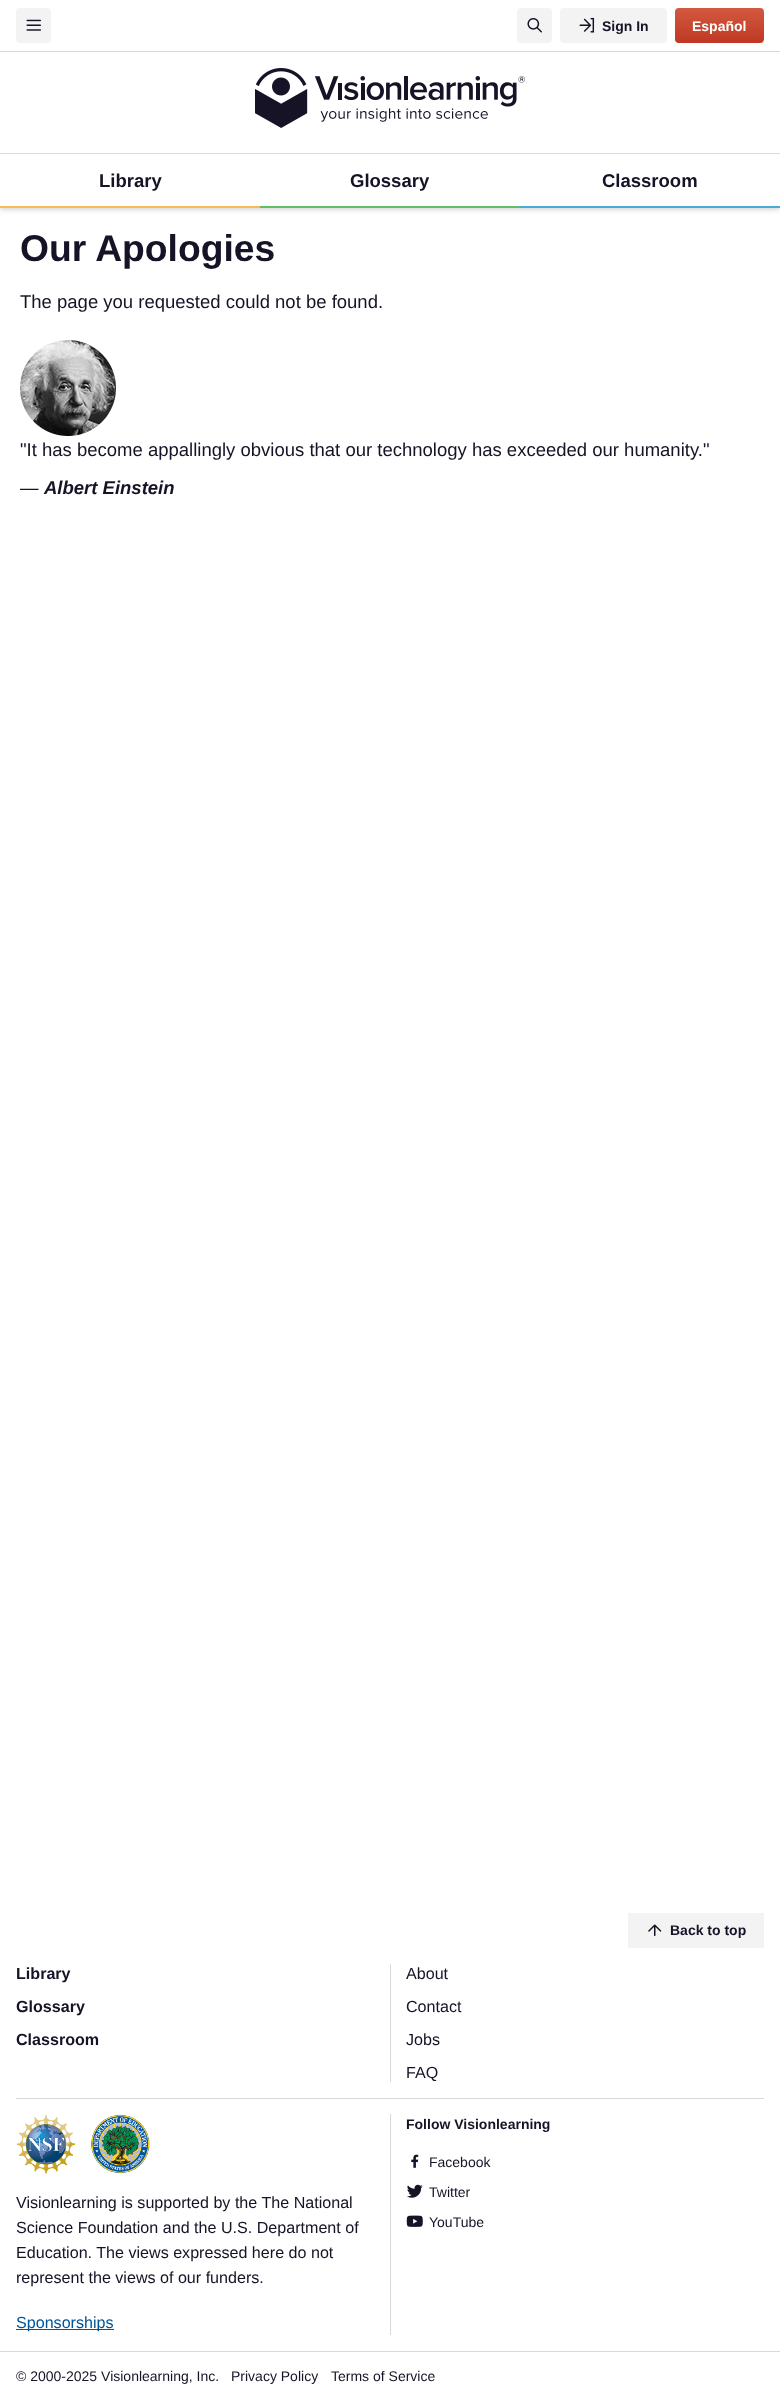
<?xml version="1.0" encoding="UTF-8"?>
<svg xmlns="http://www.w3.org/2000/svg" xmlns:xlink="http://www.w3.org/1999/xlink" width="780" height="2400">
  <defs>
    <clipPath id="clip1"><rect x="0" y="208" width="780" height="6" /></clipPath>
    <clipPath id="clip2"><rect x="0" y="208" width="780" height="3" /></clipPath>
    <linearGradient id="g1" gradientUnits="userSpaceOnUse" x1="720" y1="8" x2="720" y2="43"><stop offset="0" stop-color="#d2593f" /><stop offset="1" stop-color="#bf3823" /></linearGradient>
  </defs>
  <rect width="100%" height="100%" fill="#ffffff" />
  <g clip-path="url(#clip1)">
    <rect y="4" width="780" height="208" fill="#000000" fill-opacity="0.06" filter="blur(4px)" />
  </g>
  <g clip-path="url(#clip2)">
    <rect y="1" width="780" height="208" fill="#000000" fill-opacity="0.12" filter="blur(2px)" />
  </g>
  <rect y="51" width="780" height="1" fill="#d9d9d9" />
  <rect x="16" y="8" width="35" height="35" rx="4" fill="#f3f3f4" />
  <image x="26" y="19" width="15" height="12" xlink:href="image1.png" />
  <rect x="517" y="8" width="35" height="35" rx="4" fill="#f3f3f4" />
  <image x="527" y="18" width="15" height="15" xlink:href="image2.png" />
  <rect x="560" y="8" width="107" height="35" rx="4" fill="#f3f3f4" />
  <image x="579" y="17" width="16" height="16" xlink:href="image3.png" />
  <rect x="675" y="8" width="89" height="35" rx="4" fill="url(#g1)" />
  <rect y="153" width="780" height="1" fill="#d9d9d9" />
  <image x="255" y="68" width="270" height="60" xlink:href="image4.png" />
  <rect y="206" width="260" height="2" fill="#fab957" />
  <rect x="260" y="206" width="260" height="2" fill="#60bf64" />
  <rect x="520" y="206" width="260" height="2" fill="#4caad9" />
  <image x="20" y="340" width="96" height="96" xlink:href="image5.png" />
  <rect x="628" y="1913" width="136" height="35" fill="#161326" fill-opacity="0.05" />
  <image x="648" y="1924" width="14" height="12" xlink:href="image6.png" />
  <rect x="390" y="1964" width="1" height="118" fill="#d9d9d9" />
  <rect x="16" y="2098" width="748" height="1" fill="#d9d9d9" />
  <image x="411" y="2154" width="8" height="14" xlink:href="image7.png" />
  <image x="407" y="2184" width="16" height="14" xlink:href="image8.png" />
  <image x="406" y="2215" width="17" height="12" xlink:href="image9.png" />
  <image x="16" y="2115" width="60" height="59" xlink:href="image10.png" />
  <image x="91" y="2114" width="59" height="60" xlink:href="image11.png" />
  <rect x="390" y="2114" width="1" height="221" fill="#d9d9d9" />
  <rect x="16" y="2329" width="98" height="1" fill="#00549a" />
  <rect y="2351" width="780" height="1" fill="#d9d9d9" />
  <text x="602" y="31" style="font-family: Liberation Sans; font-size: 14px; font-weight: bold; fill: #161326">Sign In</text>
  <text x="692" y="31" style="font-family: Liberation Sans; font-size: 14px; font-weight: bold; fill: #ffffff">Español</text>
  <text x="99" y="187" style="font-family: Liberation Sans; font-size: 18.5px; font-weight: bold; fill: #161326">Library</text>
  <text x="350" y="187" style="font-family: Liberation Sans; font-size: 18.5px; font-weight: bold; fill: #161326">Glossary</text>
  <text x="602" y="187" style="font-family: Liberation Sans; font-size: 18.5px; font-weight: bold; fill: #161326">Classroom</text>
  <text x="20" y="261" style="font-family: Liberation Sans; font-size: 37.25px; font-weight: bold; fill: #161326">Our Apologies</text>
  <text x="20" y="308" style="font-family: Liberation Sans; font-size: 18.5px; fill: #161326">The page you requested could not be found.</text>
  <text x="20" y="456" style="font-family: Liberation Sans; font-size: 18.5px; fill: #161326">"It has become appallingly obvious that our technology has exceeded our humanity."</text>
  <text x="20" y="494" style="font-family: Liberation Sans; font-size: 18.5px; font-style: italic; fill: #161326">—</text>
  <text x="44" y="494" style="font-family: Liberation Sans; font-size: 18.5px; font-weight: bold; font-style: italic; fill: #161326">Albert Einstein</text>
  <text x="670" y="1935" style="font-family: Liberation Sans; font-size: 14px; font-weight: bold; fill: #161326">Back to top</text>
  <text x="16" y="1979" style="font-family: Liberation Sans; font-size: 16.1px; font-weight: bold; fill: #161326">Library</text>
  <text x="16" y="2012" style="font-family: Liberation Sans; font-size: 16.1px; font-weight: bold; fill: #161326">Glossary</text>
  <text x="16" y="2045" style="font-family: Liberation Sans; font-size: 16.1px; font-weight: bold; fill: #161326">Classroom</text>
  <text x="406" y="1979" style="font-family: Liberation Sans; font-size: 16.1px; fill: #161326">About</text>
  <text x="406" y="2012" style="font-family: Liberation Sans; font-size: 16.1px; fill: #161326">Contact</text>
  <text x="406" y="2045" style="font-family: Liberation Sans; font-size: 16.1px; fill: #161326">Jobs</text>
  <text x="406" y="2078" style="font-family: Liberation Sans; font-size: 16.1px; fill: #161326">FAQ</text>
  <text x="406" y="2129" style="font-family: Liberation Sans; font-size: 14px; font-weight: bold; fill: #161326">Follow Visionlearning</text>
  <text x="429" y="2167" style="font-family: Liberation Sans; font-size: 14px; fill: #161326">Facebook</text>
  <text x="429" y="2197" style="font-family: Liberation Sans; font-size: 14px; fill: #161326">Twitter</text>
  <text x="429" y="2227" style="font-family: Liberation Sans; font-size: 14px; fill: #161326">YouTube</text>
  <text x="16" y="2208" style="font-family: Liberation Sans; font-size: 16.1px; fill: #161326">Visionlearning is supported by the The National</text>
  <text x="16" y="2233" style="font-family: Liberation Sans; font-size: 16.1px; fill: #161326">Science Foundation and the U.S. Department of</text>
  <text x="16" y="2258" style="font-family: Liberation Sans; font-size: 16.1px; fill: #161326">Education. The views expressed here do not</text>
  <text x="16" y="2283" style="font-family: Liberation Sans; font-size: 16.1px; fill: #161326">represent the views of our funders.</text>
  <text x="16" y="2328" style="font-family: Liberation Sans; font-size: 16.1px; fill: #00549a">Sponsorships</text>
  <text x="16" y="2381" style="font-family: Liberation Sans; font-size: 14px; fill: #161326">© 2000-2025 Visionlearning, Inc.</text>
  <text x="231" y="2381" style="font-family: Liberation Sans; font-size: 14px; fill: #161326">Privacy Policy</text>
  <text x="331" y="2381" style="font-family: Liberation Sans; font-size: 14px; fill: #161326">Terms of Service</text>
</svg>
